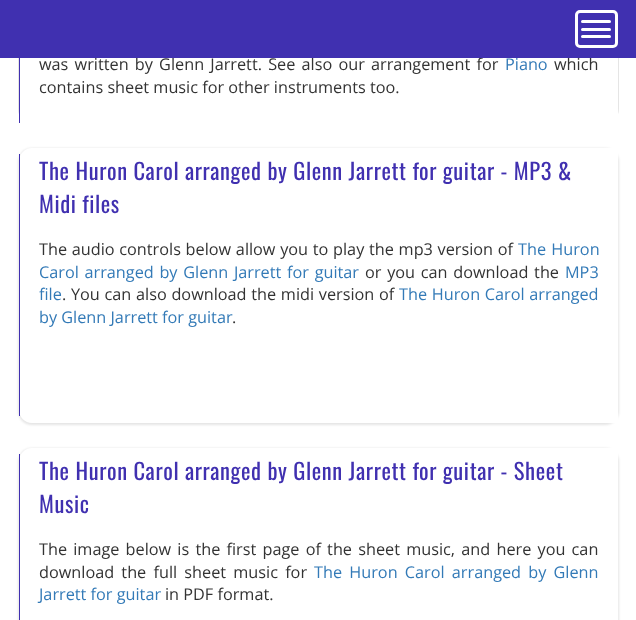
<?xml version="1.0" encoding="UTF-8"?>
<svg xmlns="http://www.w3.org/2000/svg" xmlns:xlink="http://www.w3.org/1999/xlink" width="636" height="620">
  <defs>
    <clipPath id="clip1"><path d="M 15 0 h 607 v 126 h -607 z m 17 -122 h 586 v 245 h -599 v -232 c 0 -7 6 -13 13 -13 z" clip-rule="evenodd" /></clipPath>
    <clipPath id="clip2"><path d="M 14 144 h 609 v 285 h -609 z m 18 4 h 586 v 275 h -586 c -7 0 -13 -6 -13 -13 v -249 c 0 -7 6 -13 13 -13 z" clip-rule="evenodd" /></clipPath>
    <clipPath id="clip3"><path d="M 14 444 h 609 v 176 h -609 z m 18 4 h 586 v 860 h -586 c -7 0 -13 -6 -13 -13 v -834 c 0 -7 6 -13 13 -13 z" clip-rule="evenodd" /></clipPath>
  </defs>
  <rect width="100%" height="100%" fill="#ffffff" />
  <g clip-path="url(#clip1)">
    <rect x="18" y="-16" width="601" height="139" rx="14" fill="#000000" fill-opacity="0.1" filter="blur(0.5px)" />
  </g>
  <rect x="19" y="58" width="1" height="65" fill="#4030b0" />
  <g clip-path="url(#clip2)">
    <rect x="18" y="148" width="601" height="277" rx="14" fill="#000000" fill-opacity="0.1" filter="blur(1px)" />
  </g>
  <rect x="19" y="154" width="1" height="262" fill="#4030b0" />
  <g clip-path="url(#clip3)">
    <rect x="18" y="448" width="601" height="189" rx="14" fill="#000000" fill-opacity="0.1" filter="blur(1px)" />
  </g>
  <rect x="19" y="454" width="1" height="166" fill="#4030b0" />
  <text x="39" y="70" word-spacing="2" style="font-family: Open Sans; font-size: 16.25px; fill: #333333">was written by Glenn Jarrett. See also our arrangement for</text>
  <text x="505" y="70" style="font-family: Open Sans; font-size: 16.25px; fill: #337ab7">Piano</text>
  <text x="554" y="70" style="font-family: Open Sans; font-size: 16.25px; fill: #333333">which</text>
  <rect width="636" height="58" fill="#4030b0" />
  <rect x="576.5" y="11.5" width="40" height="35" rx="3.5" fill="none" stroke="#ffffff" stroke-width="3" />
  <rect x="581" y="35" width="30" height="3" rx="1.5" fill="#ffffff" />
  <rect x="581" y="28" width="30" height="3" rx="1.5" fill="#ffffff" />
  <rect x="581" y="20" width="30" height="3" rx="1.5" fill="#ffffff" />
  <text x="39" y="93" style="font-family: Open Sans; font-size: 16.25px; fill: #333333">contains sheet music for other instruments too.</text>
  <text x="39" y="180" style="font-family: Oswald; font-size: 22.5px; letter-spacing: 0.62px; fill: #4030b0">The Huron Carol arranged by Glenn Jarrett for guitar - MP3 &amp;</text>
  <text x="39" y="213" style="font-family: Oswald; font-size: 22.5px; letter-spacing: 0.62px; fill: #4030b0">Midi files</text>
  <text x="39" y="255" word-spacing="0.5" style="font-family: Open Sans; font-size: 16.25px; fill: #333333">The audio controls below allow you to play the mp3 version of</text>
  <text x="518" y="255" word-spacing="1" style="font-family: Open Sans; font-size: 16.25px; fill: #337ab7">The Huron</text>
  <text x="39" y="278" word-spacing="1.5" style="font-family: Open Sans; font-size: 16.25px; fill: #337ab7">Carol arranged by Glenn Jarrett for guitar</text>
  <text x="365" y="278" word-spacing="1.5" style="font-family: Open Sans; font-size: 16.25px; fill: #333333">or you can download the</text>
  <text x="565" y="278" style="font-family: Open Sans; font-size: 16.25px; fill: #337ab7">MP3</text>
  <text x="39" y="300" style="font-family: Open Sans; font-size: 16.25px; fill: #337ab7">file</text>
  <text x="62" y="300" word-spacing="0.5" style="font-family: Open Sans; font-size: 16.25px; fill: #333333">. You can also download the midi version of</text>
  <text x="399" y="300" word-spacing="0.5" style="font-family: Open Sans; font-size: 16.25px; fill: #337ab7">The Huron Carol arranged</text>
  <text x="39" y="323" style="font-family: Open Sans; font-size: 16.25px; fill: #337ab7">by Glenn Jarrett for guitar</text>
  <text x="232" y="323" style="font-family: Open Sans; font-size: 16.25px; fill: #333333">.</text>
  <text x="39" y="480" style="font-family: Oswald; font-size: 22.5px; letter-spacing: 0.62px; fill: #4030b0">The Huron Carol arranged by Glenn Jarrett for guitar - Sheet</text>
  <text x="39" y="513" style="font-family: Oswald; font-size: 22.5px; letter-spacing: 0.62px; fill: #4030b0">Music</text>
  <text x="39" y="555" word-spacing="2" style="font-family: Open Sans; font-size: 16.25px; fill: #333333">The image below is the first page of the sheet music, and here you can</text>
  <text x="39" y="578" word-spacing="3" style="font-family: Open Sans; font-size: 16.25px; fill: #333333">download the full sheet music for</text>
  <text x="314" y="578" word-spacing="3" style="font-family: Open Sans; font-size: 16.25px; fill: #337ab7">The Huron Carol arranged by Glenn</text>
  <text x="39" y="600" style="font-family: Open Sans; font-size: 16.25px; fill: #337ab7">Jarrett for guitar</text>
  <text x="165" y="600" style="font-family: Open Sans; font-size: 16.25px; fill: #333333">in PDF format.</text>
</svg>
